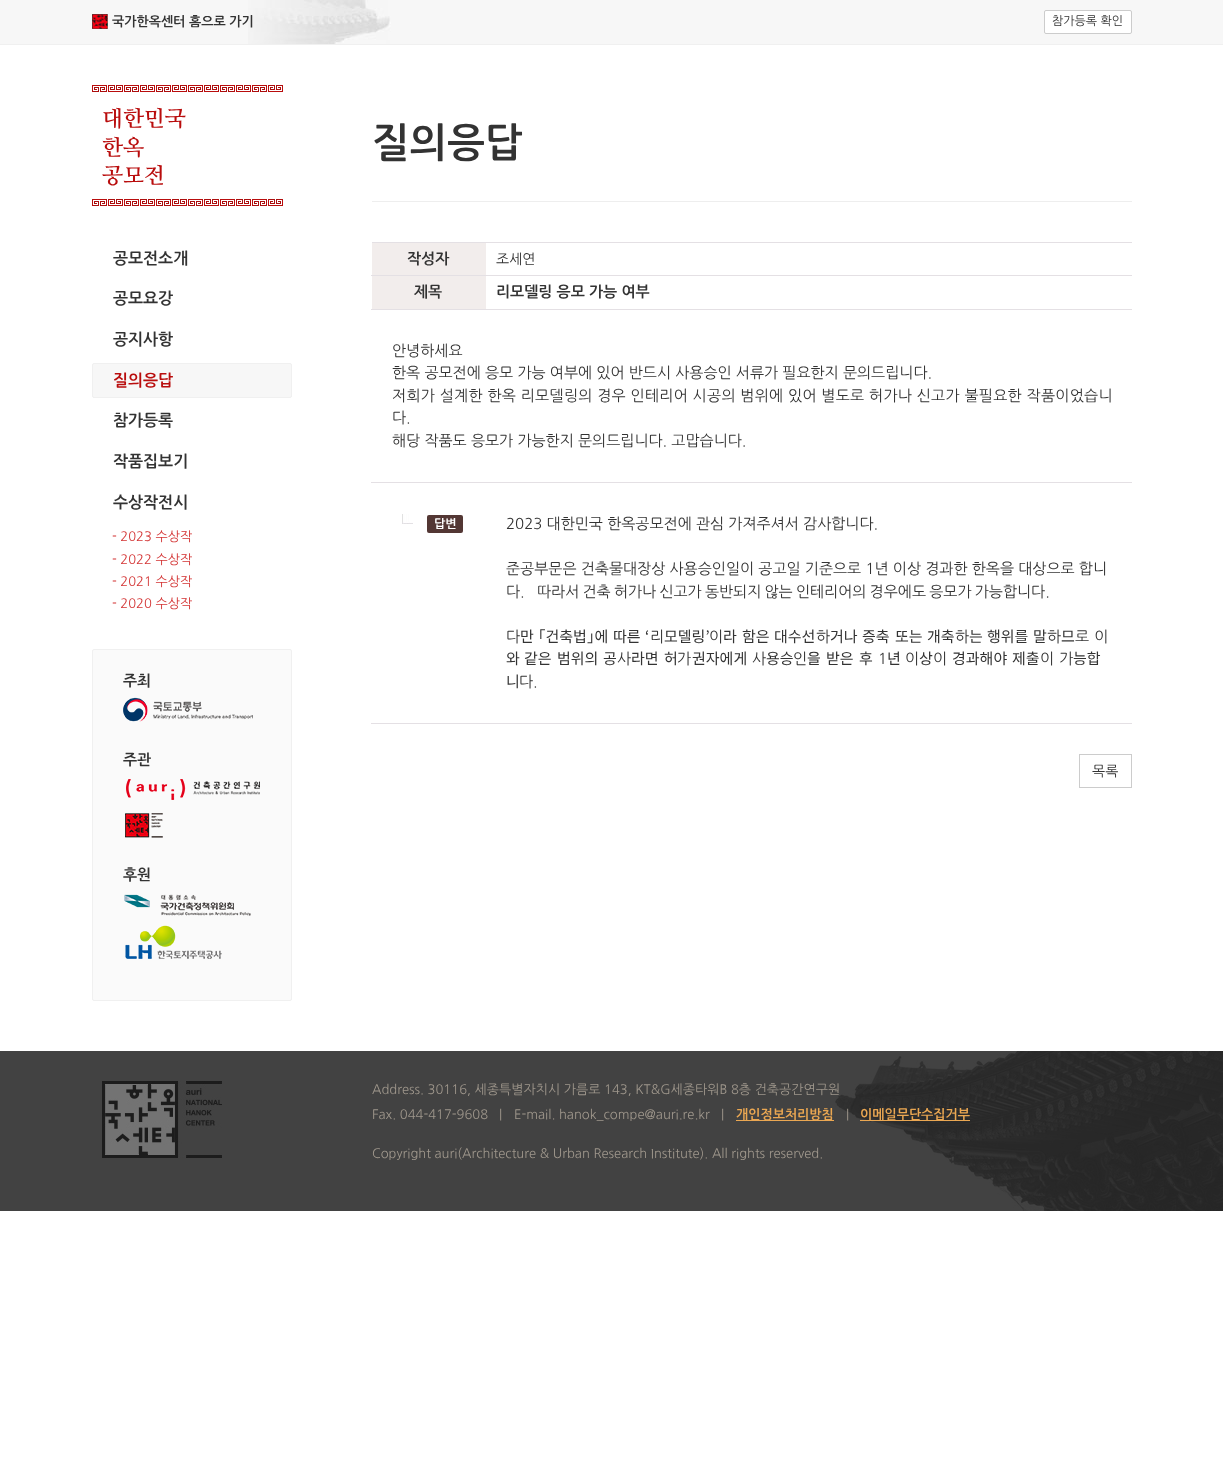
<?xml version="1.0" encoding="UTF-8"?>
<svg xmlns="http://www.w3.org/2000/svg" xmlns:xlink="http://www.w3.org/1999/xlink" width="1223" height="1460">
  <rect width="100%" height="100%" fill="#ffffff" />
  <rect width="1223" height="44" fill="#f7f7f7" />
  <rect y="44" width="1223" height="1" fill="#f0f0f0" />
  <image x="248" y="0" width="143" height="44" xlink:href="image1.png" />
  <image x="92" y="14" width="16" height="15" xlink:href="image2.png" />
  <rect x="1044.5" y="10.5" width="87" height="23" rx="1.5" fill="#ffffff" stroke="#cccccc" />
  <image x="92" y="85" width="191" height="7" xlink:href="image3.png" />
  <image x="92" y="199" width="191" height="7" xlink:href="image3.png" />
  <rect x="92.5" y="363.5" width="199" height="34" rx="1.5" fill="#f7f7f7" stroke="#f0f0f0" />
  <rect x="92.5" y="649.5" width="199" height="351" rx="1.5" fill="#fafafa" stroke="#f0f0f0" />
  <image x="123" y="697" width="130" height="25" xlink:href="image4.png" />
  <image x="126" y="779" width="134" height="21" xlink:href="image5.png" />
  <image x="125" y="813" width="38" height="25" xlink:href="image6.png" />
  <image x="124" y="894" width="127" height="22" xlink:href="image7.png" />
  <image x="125" y="925" width="97" height="34" xlink:href="image8.png" />
  <rect x="372" y="201" width="760" height="1" fill="#eeeeee" />
  <rect x="372" y="242" width="760" height="1" fill="#e4e0e4" />
  <rect x="372" y="243" width="114" height="32" fill="#f2edec" />
  <rect x="371" y="275" width="761" height="1" fill="#e4e0e4" />
  <rect x="372" y="276" width="114" height="33" fill="#f2edec" />
  <rect x="371" y="309" width="761" height="1" fill="#e4e0e4" />
  <rect x="371" y="482" width="761" height="1" fill="#e4e0e4" />
  <image x="402" y="514" width="11" height="10" xlink:href="image9.png" />
  <rect x="427" y="515" width="36" height="18" rx="2" fill="#533734" />
  <rect x="371" y="723" width="761" height="1" fill="#e4e0e4" />
  <rect x="1079.5" y="754.5" width="52" height="33" fill="none" stroke="#cccccc" />
  <rect y="1051" width="835" height="160" fill="#424242" />
  <image x="835" y="1051" width="388" height="160" xlink:href="image10.png" />
  <image x="102" y="1081" width="120" height="77" xlink:href="image11.png" />
  <rect x="736" y="1120" width="98" height="1" fill="#eaa752" />
  <rect x="860" y="1120" width="110" height="1" fill="#eaa752" />
  <text x="112" y="26" style="font-family: NanumGothic; font-size: 13px; font-weight: bold; fill: #333333">국가한옥센터 홈으로 가기</text>
  <text x="1052" y="25" style="font-family: NanumGothic; font-size: 12px; fill: #333333">참가등록 확인</text>
  <text x="102" y="126" style="font-family: NanumMyeongjo; font-size: 22px; font-weight: bold; fill: #b90d0d">대한민국</text>
  <text x="102" y="155" style="font-family: NanumMyeongjo; font-size: 22px; font-weight: bold; fill: #b90d0d">한옥</text>
  <text x="102" y="183" style="font-family: NanumMyeongjo; font-size: 22px; font-weight: bold; fill: #b90d0d">공모전</text>
  <text x="113" y="264" style="font-family: NanumGothic; font-size: 16px; font-weight: bold; fill: #333333">공모전소개</text>
  <text x="113" y="304" style="font-family: NanumGothic; font-size: 16px; font-weight: bold; fill: #333333">공모요강</text>
  <text x="113" y="345" style="font-family: NanumGothic; font-size: 16px; font-weight: bold; fill: #333333">공지사항</text>
  <text x="113" y="386" style="font-family: NanumGothic; font-size: 16px; font-weight: bold; fill: #b90d0d">질의응답</text>
  <text x="113" y="426" style="font-family: NanumGothic; font-size: 16px; font-weight: bold; fill: #333333">참가등록</text>
  <text x="113" y="467" style="font-family: NanumGothic; font-size: 16px; font-weight: bold; fill: #333333">작품집보기</text>
  <text x="113" y="508" style="font-family: NanumGothic; font-size: 16px; font-weight: bold; fill: #333333">수상작전시</text>
  <text x="112" y="541" style="font-family: NanumGothic; font-size: 13px; fill: #d33333">- 2023 수상작</text>
  <text x="112" y="564" style="font-family: NanumGothic; font-size: 13px; fill: #d33333">- 2022 수상작</text>
  <text x="112" y="586" style="font-family: NanumGothic; font-size: 13px; fill: #d33333">- 2021 수상작</text>
  <text x="112" y="608" style="font-family: NanumGothic; font-size: 13px; fill: #d33333">- 2020 수상작</text>
  <text x="123" y="686" style="font-family: NanumGothic; font-size: 15px; font-weight: bold; fill: #333333">주최</text>
  <text x="123" y="765" style="font-family: NanumGothic; font-size: 15px; font-weight: bold; fill: #333333">주관</text>
  <text x="123" y="880" style="font-family: NanumGothic; font-size: 15px; font-weight: bold; fill: #333333">후원</text>
  <text x="372" y="157" style="font-family: NanumGothic; font-size: 40px; font-weight: bold; fill: #333333">질의응답</text>
  <text x="407" y="264" style="font-family: NanumGothic; font-size: 15px; font-weight: bold; fill: #333333">작성자</text>
  <text x="496" y="264" style="font-family: NanumGothic; font-size: 14px; fill: #333333">조세연</text>
  <text x="414" y="297" style="font-family: NanumGothic; font-size: 15px; font-weight: bold; fill: #333333">제목</text>
  <text x="496" y="297" style="font-family: NanumGothic; font-size: 15px; font-weight: bold; fill: #333333">리모델링 응모 가능 여부</text>
  <text x="392" y="356" style="font-family: NanumGothic; font-size: 15px; fill: #333333">안녕하세요</text>
  <text x="392" y="378" style="font-family: NanumGothic; font-size: 15px; fill: #333333">한옥 공모전에 응모 가능 여부에 있어 반드시 사용승인 서류가 필요한지 문의드립니다.</text>
  <text x="392" y="401" style="font-family: NanumGothic; font-size: 15px; letter-spacing: 0.3px; fill: #333333">저희가 설계한 한옥 리모델링의 경우 인테리어 시공의 범위에 있어 별도로 허가나 신고가 불필요한 작품이었습니</text>
  <text x="392" y="423" style="font-family: NanumGothic; font-size: 15px; fill: #333333">다.</text>
  <text x="392" y="446" style="font-family: NanumGothic; font-size: 15px; fill: #333333">해당 작품도 응모가 가능한지 문의드립니다. 고맙습니다.</text>
  <text x="434" y="528" style="font-family: NanumGothic; font-size: 12px; font-weight: bold; fill: #ffffff">답변</text>
  <text x="506" y="529" style="font-family: NanumGothic; font-size: 15px; fill: #333333">2023 대한민국 한옥공모전에 관심 가져주셔서 감사합니다.</text>
  <text x="506" y="574" style="font-family: NanumGothic; font-size: 15px; fill: #333333">준공부문은 건축물대장상 사용승인일이 공고일 기준으로 1년 이상 경과한 한옥을 대상으로 합니</text>
  <text x="506" y="597" word-spacing="-1" style="font-family: NanumGothic; font-size: 15px; fill: #333333">다.</text>
  <text x="537" y="597" word-spacing="-1" style="font-family: NanumGothic; font-size: 15px; fill: #333333">따라서 건축 허가나 신고가 동반되지 않는 인테리어의 경우에도 응모가 가능합니다.</text>
  <text x="506" y="642" style="font-family: NanumGothic; font-size: 15px; fill: #333333">다</text>
  <text x="520" y="642" style="font-family: Noto Sans CJK KR; font-size: 15px; fill: #333333">만</text>
  <text x="538" y="642" style="font-family: Noto Sans CJK KR; font-size: 15px; fill: #333333">｢건축법｣에</text>
  <text x="613" y="642" style="font-family: Noto Sans CJK KR; font-size: 15px; fill: #333333">따른</text>
  <text x="645" y="642" style="font-family: Noto Sans CJK KR; font-size: 15px; fill: #333333">‘</text>
  <text x="650" y="642" style="font-family: NanumGothic; font-size: 15px; fill: #333333">리</text>
  <text x="664" y="642" style="font-family: Noto Sans CJK KR; font-size: 15px; fill: #333333">모델링’</text>
  <text x="709" y="642" style="font-family: NanumGothic; font-size: 15px; fill: #333333">이</text>
  <text x="723" y="642" style="font-family: Noto Sans CJK KR; font-size: 15px; fill: #333333">라</text>
  <text x="742" y="642" style="font-family: Noto Sans CJK KR; font-size: 15px; fill: #333333">함은</text>
  <text x="774" y="642" style="font-family: Noto Sans CJK KR; font-size: 15px; fill: #333333">대수선</text>
  <text x="816" y="642" style="font-family: NanumGothic; font-size: 15px; fill: #333333">하</text>
  <text x="830" y="642" style="font-family: Noto Sans CJK KR; font-size: 15px; fill: #333333">거나</text>
  <text x="862" y="642" style="font-family: Noto Sans CJK KR; font-size: 15px; fill: #333333">증축</text>
  <text x="895" y="642" style="font-family: Noto Sans CJK KR; font-size: 15px; fill: #333333">또는</text>
  <text x="927" y="642" style="font-family: Noto Sans CJK KR; font-size: 15px; fill: #333333">개축</text>
  <text x="955" y="642" style="font-family: NanumGothic; font-size: 15px; fill: #333333">하</text>
  <text x="969" y="642" style="font-family: Noto Sans CJK KR; font-size: 15px; fill: #333333">는</text>
  <text x="987" y="642" style="font-family: Noto Sans CJK KR; font-size: 15px; fill: #333333">행위를</text>
  <text x="1033" y="642" style="font-family: Noto Sans CJK KR; font-size: 15px; fill: #333333">말</text>
  <text x="1047" y="642" style="font-family: NanumGothic; font-size: 15px; fill: #333333">하</text>
  <text x="1061" y="642" style="font-family: Noto Sans CJK KR; font-size: 15px; fill: #333333">므</text>
  <text x="1075" y="642" word-spacing="1" style="font-family: NanumGothic; font-size: 15px; fill: #333333">로 이</text>
  <text x="506" y="664" style="font-family: Noto Sans CJK KR; font-size: 15px; fill: #333333">와</text>
  <text x="524" y="664" style="font-family: Noto Sans CJK KR; font-size: 15px; fill: #333333">같은</text>
  <text x="557" y="664" style="font-family: Noto Sans CJK KR; font-size: 15px; fill: #333333">범위의</text>
  <text x="603" y="664" style="font-family: Noto Sans CJK KR; font-size: 15px; fill: #333333">공</text>
  <text x="617" y="664" style="font-family: NanumGothic; font-size: 15px; fill: #333333">사</text>
  <text x="631" y="664" style="font-family: Noto Sans CJK KR; font-size: 15px; fill: #333333">라면</text>
  <text x="664" y="664" style="font-family: Noto Sans CJK KR; font-size: 15px; fill: #333333">허</text>
  <text x="677" y="664" style="font-family: NanumGothic; font-size: 15px; fill: #333333">가</text>
  <text x="692" y="664" style="font-family: Noto Sans CJK KR; font-size: 15px; fill: #333333">권자에게</text>
  <text x="752" y="664" style="font-family: NanumGothic; font-size: 15px; fill: #333333">사</text>
  <text x="766" y="664" style="font-family: Noto Sans CJK KR; font-size: 15px; fill: #333333">용승</text>
  <text x="793" y="664" style="font-family: NanumGothic; font-size: 15px; fill: #333333">인</text>
  <text x="807" y="664" style="font-family: Noto Sans CJK KR; font-size: 15px; fill: #333333">을</text>
  <text x="826" y="664" style="font-family: Noto Sans CJK KR; font-size: 15px; fill: #333333">받은</text>
  <text x="859" y="664" style="font-family: Noto Sans CJK KR; font-size: 15px; fill: #333333">후</text>
  <text x="878" y="664" style="font-family: NanumGothic; font-size: 15px; fill: #333333">1</text>
  <text x="887" y="664" style="font-family: Noto Sans CJK KR; font-size: 15px; fill: #333333">년</text>
  <text x="905" y="664" style="font-family: NanumGothic; font-size: 15px; fill: #333333">이</text>
  <text x="919" y="664" style="font-family: Noto Sans CJK KR; font-size: 15px; fill: #333333">상</text>
  <text x="933" y="664" style="font-family: NanumGothic; font-size: 15px; fill: #333333">이</text>
  <text x="952" y="664" style="font-family: Noto Sans CJK KR; font-size: 15px; fill: #333333">경과해야</text>
  <text x="1012" y="664" style="font-family: Noto Sans CJK KR; font-size: 15px; fill: #333333">제출</text>
  <text x="1040" y="664" word-spacing="1" style="font-family: NanumGothic; font-size: 15px; fill: #333333">이 가</text>
  <text x="1073" y="664" style="font-family: Noto Sans CJK KR; font-size: 15px; fill: #333333">능합</text>
  <text x="506" y="687" style="font-family: Noto Sans CJK KR; font-size: 15px; fill: #333333">니</text>
  <text x="519" y="687" style="font-family: NanumGothic; font-size: 15px; fill: #333333">다.</text>
  <text x="1092" y="776" style="font-family: NanumGothic; font-size: 14px; fill: #333333">목록</text>
  <text x="372" y="1094" style="font-family: NanumGothic; font-size: 13px; fill: #9f978c">Address. 30116, 세종특별자치시 가름로 143, KT&amp;G세종타워B 8층 건축공간연구원</text>
  <text x="372" y="1119" style="font-family: NanumGothic; font-size: 13px; fill: #9f978c">Fax. 044-417-9608</text>
  <text x="499" y="1119" style="font-family: NanumGothic; font-size: 13px; fill: #9f978c">|</text>
  <text x="514" y="1119" style="font-family: NanumGothic; font-size: 13px; fill: #9f978c">E-mail. hanok_compe@auri.re.kr</text>
  <text x="721" y="1119" style="font-family: NanumGothic; font-size: 13px; fill: #9f978c">|</text>
  <text x="736" y="1119" style="font-family: NanumGothic; font-size: 13px; font-weight: bold; fill: #eaa752">개인정보처리방침</text>
  <text x="846" y="1119" style="font-family: NanumGothic; font-size: 13px; fill: #9f978c">|</text>
  <text x="860" y="1119" style="font-family: NanumGothic; font-size: 13px; font-weight: bold; fill: #eaa752">이메일무단수집거부</text>
  <text x="372" y="1158" style="font-family: NanumGothic; font-size: 13px; fill: #9f978c">Copyright auri(Architecture &amp; Urban Research Institute). All rights reserved.</text>
</svg>
